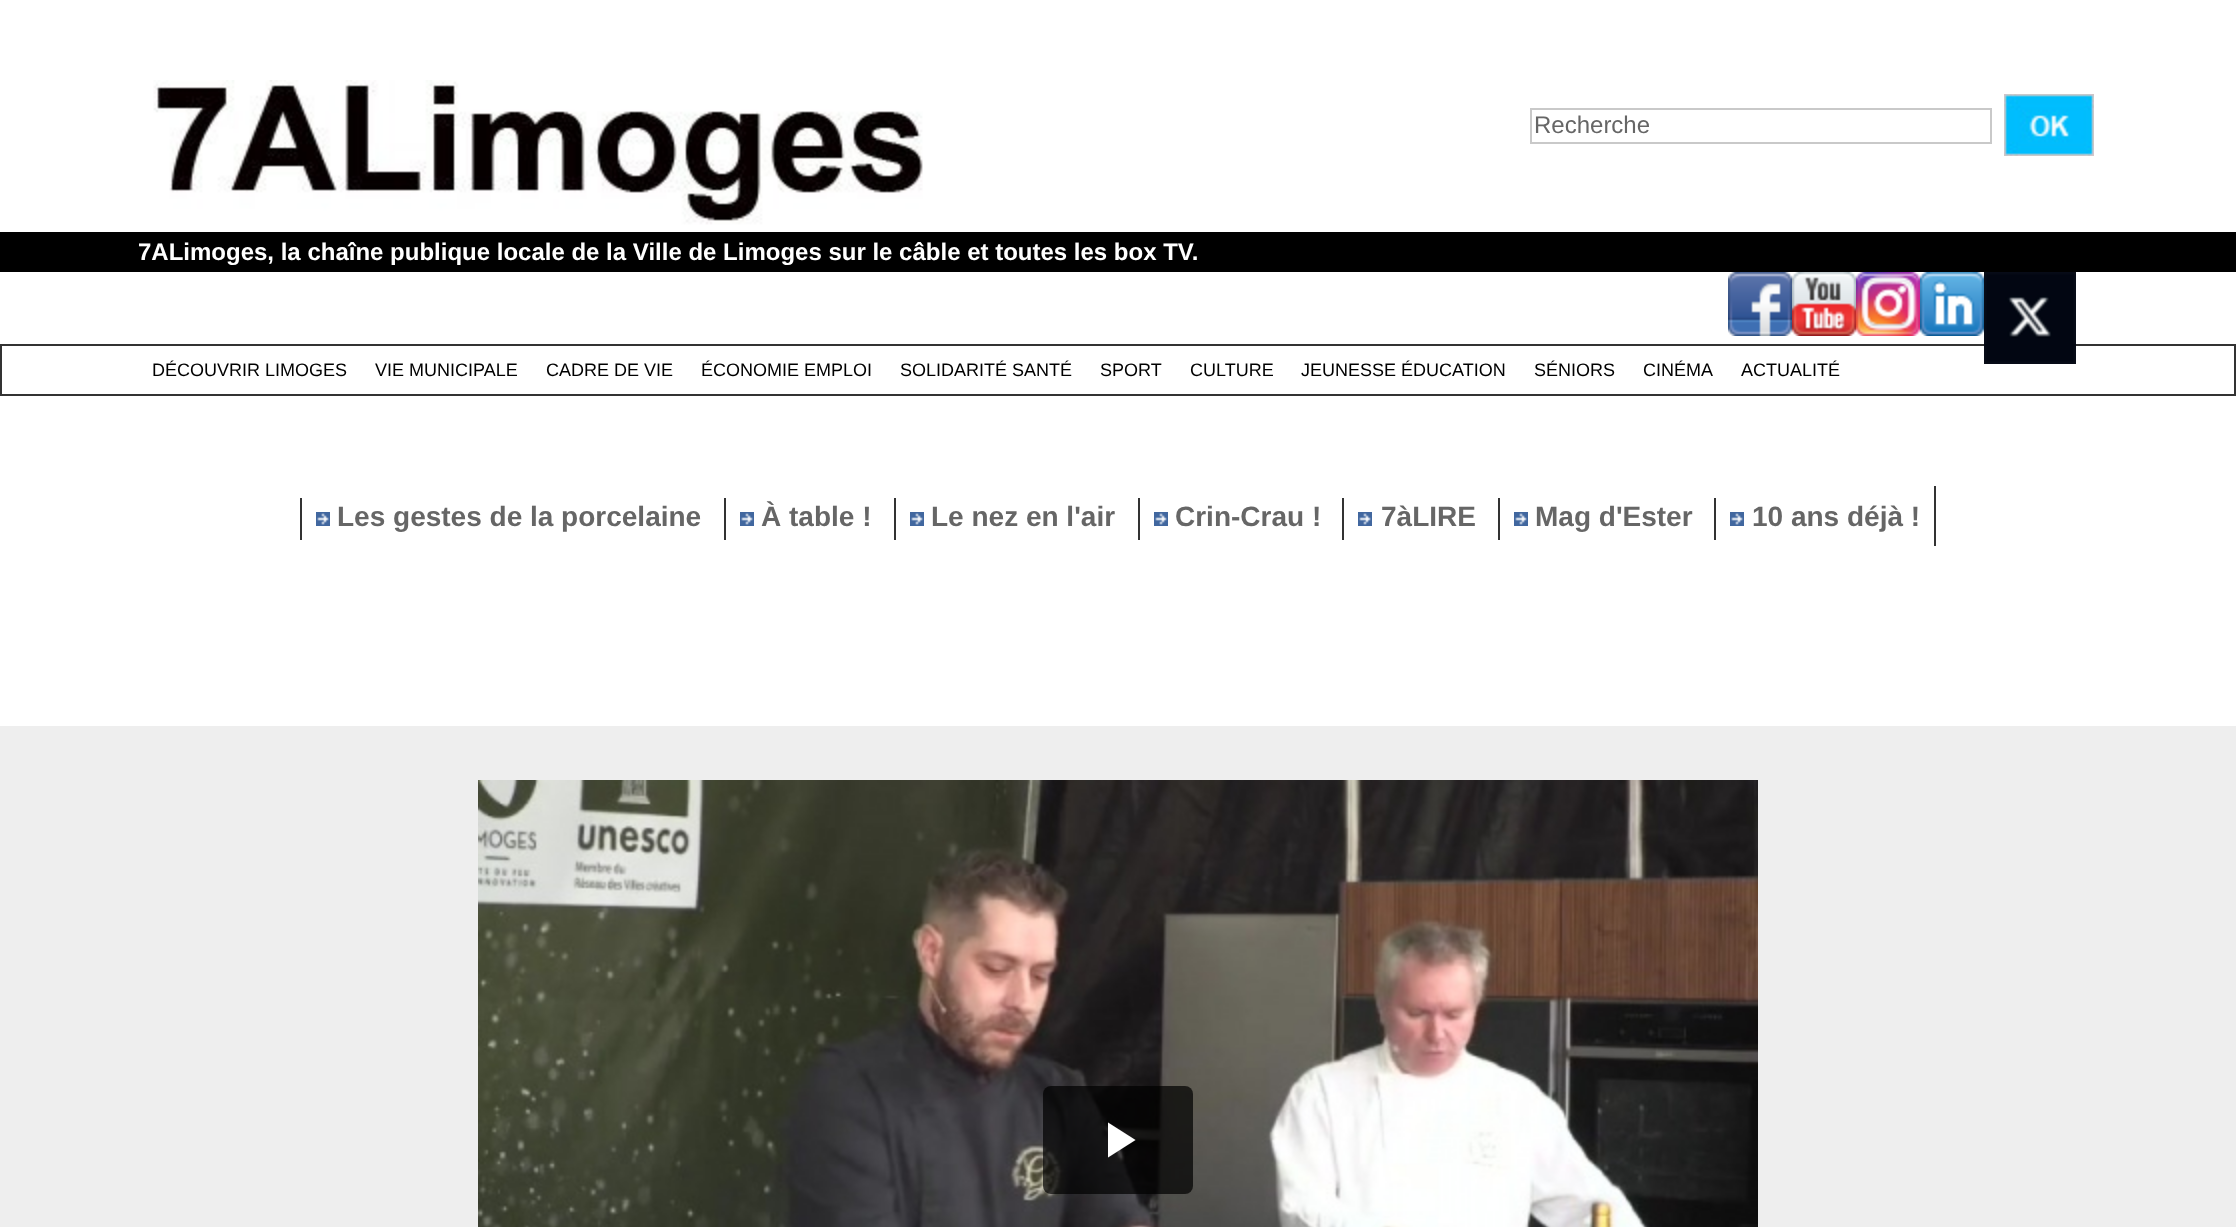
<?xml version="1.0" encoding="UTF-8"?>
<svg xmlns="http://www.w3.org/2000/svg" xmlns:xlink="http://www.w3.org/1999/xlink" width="2236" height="1227">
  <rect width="100%" height="100%" fill="#eeeeee" />
  <rect width="2236" height="726" fill="#ffffff" />
  <image x="153" y="80" width="770" height="145" xlink:href="image1.png" />
  <rect x="1531" y="109" width="460" height="34" fill="none" stroke="#c9c9c9" stroke-width="2" />
  <image x="2004" y="94" width="90" height="62" xlink:href="image2.png" />
  <rect y="232" width="2236" height="40" fill="#000000" />
  <image x="1728" y="272" width="64" height="64" xlink:href="image3.png" />
  <image x="1792" y="272" width="64" height="64" xlink:href="image4.png" />
  <image x="1856" y="272" width="64" height="64" xlink:href="image5.png" />
  <image x="1920" y="272" width="64" height="64" xlink:href="image6.png" />
  <rect x="1" y="345" width="2234" height="50" fill="none" stroke="#333333" stroke-width="2" />
  <image x="1984" y="272" width="92" height="92" xlink:href="image7.png" />
  <image x="316" y="512" width="14" height="14" xlink:href="image8.png" />
  <rect x="300" y="498" width="2" height="42" fill="#333333" />
  <image x="740" y="512" width="14" height="14" xlink:href="image8.png" />
  <rect x="724" y="498" width="2" height="42" fill="#333333" />
  <image x="910" y="512" width="14" height="14" xlink:href="image8.png" />
  <rect x="894" y="498" width="2" height="42" fill="#333333" />
  <image x="1154" y="512" width="14" height="14" xlink:href="image8.png" />
  <rect x="1138" y="498" width="2" height="42" fill="#333333" />
  <image x="1358" y="512" width="14" height="14" xlink:href="image8.png" />
  <rect x="1342" y="498" width="2" height="42" fill="#333333" />
  <image x="1514" y="512" width="14" height="14" xlink:href="image8.png" />
  <rect x="1498" y="498" width="2" height="42" fill="#333333" />
  <image x="1730" y="512" width="14" height="14" xlink:href="image8.png" />
  <rect x="1714" y="498" width="2" height="42" fill="#333333" />
  <rect x="1934" y="486" width="2" height="60" fill="#333333" />
  <image x="478" y="780" width="1280" height="447" xlink:href="image9.png" />
  <text x="1534" y="133" style="font-family: Liberation Sans; font-size: 24px; fill: #666666">Recherche</text>
  <text x="138" y="260" style="font-family: Liberation Sans; font-size: 24px; font-weight: bold; fill: #ffffff">7ALimoges, la chaîne publique locale de la Ville de Limoges sur le câble et toutes les box TV.</text>
  <text x="152" y="376" style="font-family: Liberation Sans; font-size: 18px; fill: #000000">DÉCOUVRIR LIMOGES</text>
  <text x="375" y="376" style="font-family: Liberation Sans; font-size: 18px; fill: #000000">VIE MUNICIPALE</text>
  <text x="546" y="376" style="font-family: Liberation Sans; font-size: 18px; fill: #000000">CADRE DE VIE</text>
  <text x="701" y="376" style="font-family: Liberation Sans; font-size: 18px; fill: #000000">ÉCONOMIE EMPLOI</text>
  <text x="900" y="376" style="font-family: Liberation Sans; font-size: 18px; fill: #000000">SOLIDARITÉ SANTÉ</text>
  <text x="1100" y="376" style="font-family: Liberation Sans; font-size: 18px; fill: #000000">SPORT</text>
  <text x="1190" y="376" style="font-family: Liberation Sans; font-size: 18px; fill: #000000">CULTURE</text>
  <text x="1301" y="376" style="font-family: Liberation Sans; font-size: 18px; fill: #000000">JEUNESSE ÉDUCATION</text>
  <text x="1534" y="376" style="font-family: Liberation Sans; font-size: 18px; fill: #000000">SÉNIORS</text>
  <text x="1643" y="376" style="font-family: Liberation Sans; font-size: 18px; fill: #000000">CINÉMA</text>
  <text x="1741" y="376" style="font-family: Liberation Sans; font-size: 18px; fill: #000000">ACTUALITÉ</text>
  <text x="337" y="526" style="font-family: Liberation Sans; font-size: 28px; font-weight: bold; fill: #666666">Les gestes de la porcelaine</text>
  <text x="761" y="526" style="font-family: Liberation Sans; font-size: 28px; font-weight: bold; fill: #666666">À table !</text>
  <text x="931" y="526" style="font-family: Liberation Sans; font-size: 28px; font-weight: bold; fill: #666666">Le nez en l'air</text>
  <text x="1175" y="526" style="font-family: Liberation Sans; font-size: 28px; font-weight: bold; fill: #666666">Crin-Crau !</text>
  <text x="1381" y="526" style="font-family: Liberation Sans; font-size: 28px; font-weight: bold; fill: #666666">7àLIRE</text>
  <text x="1535" y="526" style="font-family: Liberation Sans; font-size: 28px; font-weight: bold; fill: #666666">Mag d'Ester</text>
  <text x="1752" y="526" style="font-family: Liberation Sans; font-size: 28px; font-weight: bold; fill: #666666">10 ans déjà !</text>
</svg>
